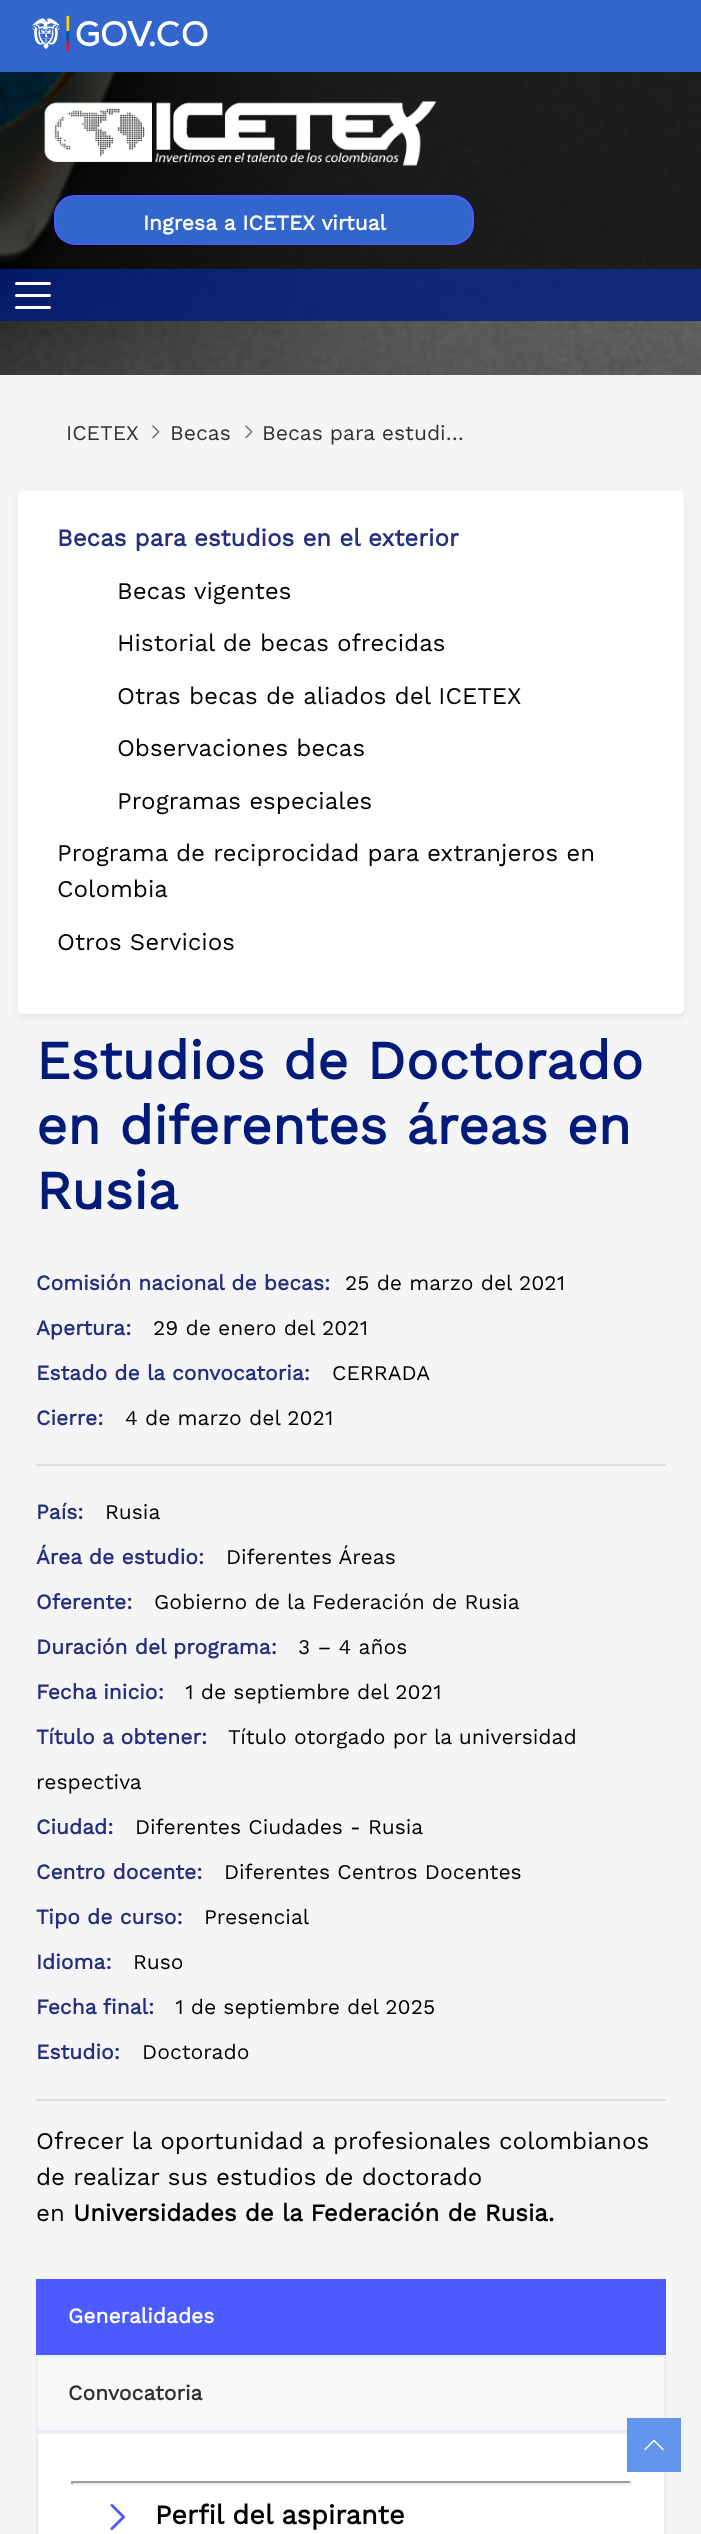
<?xml version="1.0" encoding="UTF-8"?>
<svg xmlns="http://www.w3.org/2000/svg" xmlns:xlink="http://www.w3.org/1999/xlink" width="701" height="2534">
  <rect width="100%" height="100%" fill="#f5f5f5" />
  <image x="0" y="72" width="701" height="303" xlink:href="image3.png" />
  <rect y="72" width="701" height="197" fill="#000000" fill-opacity="0.7" />
  <rect width="701" height="72" fill="#3366cc" />
  <image x="32" y="15" width="176" height="37" xlink:href="image1.png" />
  <image x="44" y="101" width="393" height="65" xlink:href="image2.png" />
  <rect x="55" y="196" width="418" height="48" rx="20" fill="#3366cc" stroke="#4c5bff" stroke-width="2" />
  <rect y="269" width="701" height="52" fill="#001c7e" fill-opacity="0.8" />
  <path d="M 16.5 283.5 h 33 m -33 12 h 33 m -33 12 h 33" fill="none" stroke="#ffffff" stroke-width="3" stroke-linecap="round" />
  <image x="152" y="425" width="8" height="14" xlink:href="image4.png" />
  <image x="245" y="425" width="8" height="14" xlink:href="image4.png" />
  <rect x="18" y="494" width="666" height="523" rx="5" fill="#000000" fill-opacity="0.07" filter="blur(3px)" />
  <rect x="18" y="491" width="666" height="523" rx="5" fill="#ffffff" />
  <rect x="36" y="1464" width="630" height="2" fill="#dddddd" />
  <rect x="36" y="2099" width="630" height="2" fill="#dddddd" />
  <rect x="36" y="2279" width="630" height="76" fill="#4c5bff" />
  <rect x="37" y="2356" width="628" height="75" fill="#f8f8fa" stroke="#e6eef3" stroke-width="2" />
  <rect x="37" y="2433" width="628" height="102" fill="#ffffff" stroke="#e6eef3" stroke-width="2" />
  <rect x="71" y="2481" width="561" height="2" fill="#9f9f9f" />
  <rect x="630" y="2481" width="2" height="3" fill="#eeeeee" />
  <rect x="71" y="2483" width="561" height="2" fill="#eeeeee" />
  <rect x="71" y="2481" width="2" height="3" fill="#9f9f9f" />
  <image x="110" y="2503" width="15" height="28" xlink:href="image5.png" />
  <rect x="627" y="2418" width="54" height="54" fill="#6495ed" />
  <image x="644" y="2439" width="20" height="12" xlink:href="image6.png" />
  <text x="143" y="230" style="font-family: Work Sans; font-size: 21px; font-weight: bold; fill: #ffffff">Ingresa a ICETEX virtual</text>
  <text x="66" y="440" style="font-family: Work Sans; font-size: 21px; fill: #313131">ICETEX</text>
  <text x="170" y="440" style="font-family: Work Sans; font-size: 21px; fill: #313131">Becas</text>
  <text x="262" y="440" style="font-family: Work Sans; font-size: 21px; fill: #313131">Becas para estudi…</text>
  <text x="57" y="546" style="font-family: Work Sans; font-size: 24px; font-weight: bold; fill: #262e7f">Becas para estudios en el exterior</text>
  <text x="117" y="599" style="font-family: Work Sans; font-size: 24px; fill: #000000">Becas vigentes</text>
  <text x="117" y="651" style="font-family: Work Sans; font-size: 24px; fill: #000000">Historial de becas ofrecidas</text>
  <text x="117" y="704" style="font-family: Work Sans; font-size: 24px; fill: #000000">Otras becas de aliados del ICETEX</text>
  <text x="117" y="756" style="font-family: Work Sans; font-size: 24px; fill: #000000">Observaciones becas</text>
  <text x="117" y="809" style="font-family: Work Sans; font-size: 24px; fill: #000000">Programas especiales</text>
  <text x="57" y="861" style="font-family: Work Sans; font-size: 24px; fill: #000000">Programa de reciprocidad para extranjeros en</text>
  <text x="57" y="897" style="font-family: Work Sans; font-size: 24px; fill: #000000">Colombia</text>
  <text x="57" y="950" style="font-family: Work Sans; font-size: 24px; fill: #000000">Otros Servicios</text>
  <text x="36" y="1079" style="font-family: Work Sans; font-size: 54px; font-weight: bold; fill: #001b79">Estudios de Doctorado</text>
  <text x="36" y="1144" style="font-family: Work Sans; font-size: 54px; font-weight: bold; fill: #001b79">en diferentes áreas en</text>
  <text x="36" y="1209" style="font-family: Work Sans; font-size: 54px; font-weight: bold; fill: #001b79">Rusia</text>
  <text x="36" y="1290" style="font-family: Work Sans; font-size: 21px; font-weight: bold; fill: #262e7f">Comisión nacional de becas:</text>
  <text x="345" y="1290" style="font-family: Work Sans; font-size: 21px; fill: #000000">25 de marzo del 2021</text>
  <text x="36" y="1335" style="font-family: Work Sans; font-size: 21px; font-weight: bold; fill: #262e7f">Apertura:</text>
  <text x="153" y="1335" style="font-family: Work Sans; font-size: 21px; fill: #000000">29 de enero del 2021</text>
  <text x="36" y="1380" style="font-family: Work Sans; font-size: 21px; font-weight: bold; fill: #262e7f">Estado de la convocatoria:</text>
  <text x="332" y="1380" style="font-family: Work Sans; font-size: 21px; fill: #000000">CERRADA</text>
  <text x="36" y="1425" style="font-family: Work Sans; font-size: 21px; font-weight: bold; fill: #262e7f">Cierre:</text>
  <text x="125" y="1425" style="font-family: Work Sans; font-size: 21px; fill: #000000">4 de marzo del 2021</text>
  <text x="36" y="1519" style="font-family: Work Sans; font-size: 21px; font-weight: bold; fill: #262e7f">País:</text>
  <text x="105" y="1519" style="font-family: Work Sans; font-size: 21px; fill: #000000">Rusia</text>
  <text x="36" y="1564" style="font-family: Work Sans; font-size: 21px; font-weight: bold; fill: #262e7f">Área de estudio:</text>
  <text x="226" y="1564" style="font-family: Work Sans; font-size: 21px; fill: #000000">Diferentes Áreas</text>
  <text x="36" y="1609" style="font-family: Work Sans; font-size: 21px; font-weight: bold; fill: #262e7f">Oferente:</text>
  <text x="154" y="1609" style="font-family: Work Sans; font-size: 21px; fill: #000000">Gobierno de la Federación de Rusia</text>
  <text x="36" y="1654" style="font-family: Work Sans; font-size: 21px; font-weight: bold; fill: #262e7f">Duración del programa:</text>
  <text x="298" y="1654" style="font-family: Work Sans; font-size: 21px; fill: #000000">3 – 4 años</text>
  <text x="36" y="1699" style="font-family: Work Sans; font-size: 21px; font-weight: bold; fill: #262e7f">Fecha inicio:</text>
  <text x="185" y="1699" style="font-family: Work Sans; font-size: 21px; fill: #000000">1 de septiembre del 2021</text>
  <text x="36" y="1744" style="font-family: Work Sans; font-size: 21px; font-weight: bold; fill: #262e7f">Título a obtener:</text>
  <text x="228" y="1744" style="font-family: Work Sans; font-size: 21px; fill: #000000">Título otorgado por la universidad</text>
  <text x="36" y="1789" style="font-family: Work Sans; font-size: 21px; fill: #000000">respectiva</text>
  <text x="36" y="1834" style="font-family: Work Sans; font-size: 21px; font-weight: bold; fill: #262e7f">Ciudad:</text>
  <text x="135" y="1834" style="font-family: Work Sans; font-size: 21px; fill: #000000">Diferentes Ciudades - Rusia</text>
  <text x="36" y="1879" style="font-family: Work Sans; font-size: 21px; font-weight: bold; fill: #262e7f">Centro docente:</text>
  <text x="224" y="1879" style="font-family: Work Sans; font-size: 21px; fill: #000000">Diferentes Centros Docentes</text>
  <text x="36" y="1924" style="font-family: Work Sans; font-size: 21px; font-weight: bold; fill: #262e7f">Tipo de curso:</text>
  <text x="204" y="1924" style="font-family: Work Sans; font-size: 21px; fill: #000000">Presencial</text>
  <text x="36" y="1969" style="font-family: Work Sans; font-size: 21px; font-weight: bold; fill: #262e7f">Idioma:</text>
  <text x="133" y="1969" style="font-family: Work Sans; font-size: 21px; fill: #000000">Ruso</text>
  <text x="36" y="2014" style="font-family: Work Sans; font-size: 21px; font-weight: bold; fill: #262e7f">Fecha final:</text>
  <text x="175" y="2014" style="font-family: Work Sans; font-size: 21px; fill: #000000">1 de septiembre del 2025</text>
  <text x="36" y="2059" style="font-family: Work Sans; font-size: 21px; font-weight: bold; fill: #262e7f">Estudio:</text>
  <text x="142" y="2059" style="font-family: Work Sans; font-size: 21px; fill: #000000">Doctorado</text>
  <text x="36" y="2149" style="font-family: Work Sans; font-size: 24px; fill: #000000">Ofrecer la oportunidad a profesionales colombianos</text>
  <text x="36" y="2185" style="font-family: Work Sans; font-size: 24px; fill: #000000">de realizar sus estudios de doctorado</text>
  <text x="36" y="2221" style="font-family: Work Sans; font-size: 24px; fill: #000000">en</text>
  <text x="73" y="2221" style="font-family: Work Sans; font-size: 24px; font-weight: bold; fill: #000000">Universidades de la Federación de Rusia.</text>
  <text x="68" y="2323" style="font-family: Work Sans; font-size: 21px; font-weight: bold; fill: #ffffff">Generalidades</text>
  <text x="68" y="2400" style="font-family: Work Sans; font-size: 21px; font-weight: bold; fill: #313131">Convocatoria</text>
  <text x="155" y="2524" style="font-family: Work Sans; font-size: 27px; font-weight: bold; fill: #000000">Perfil del aspirante</text>
</svg>
